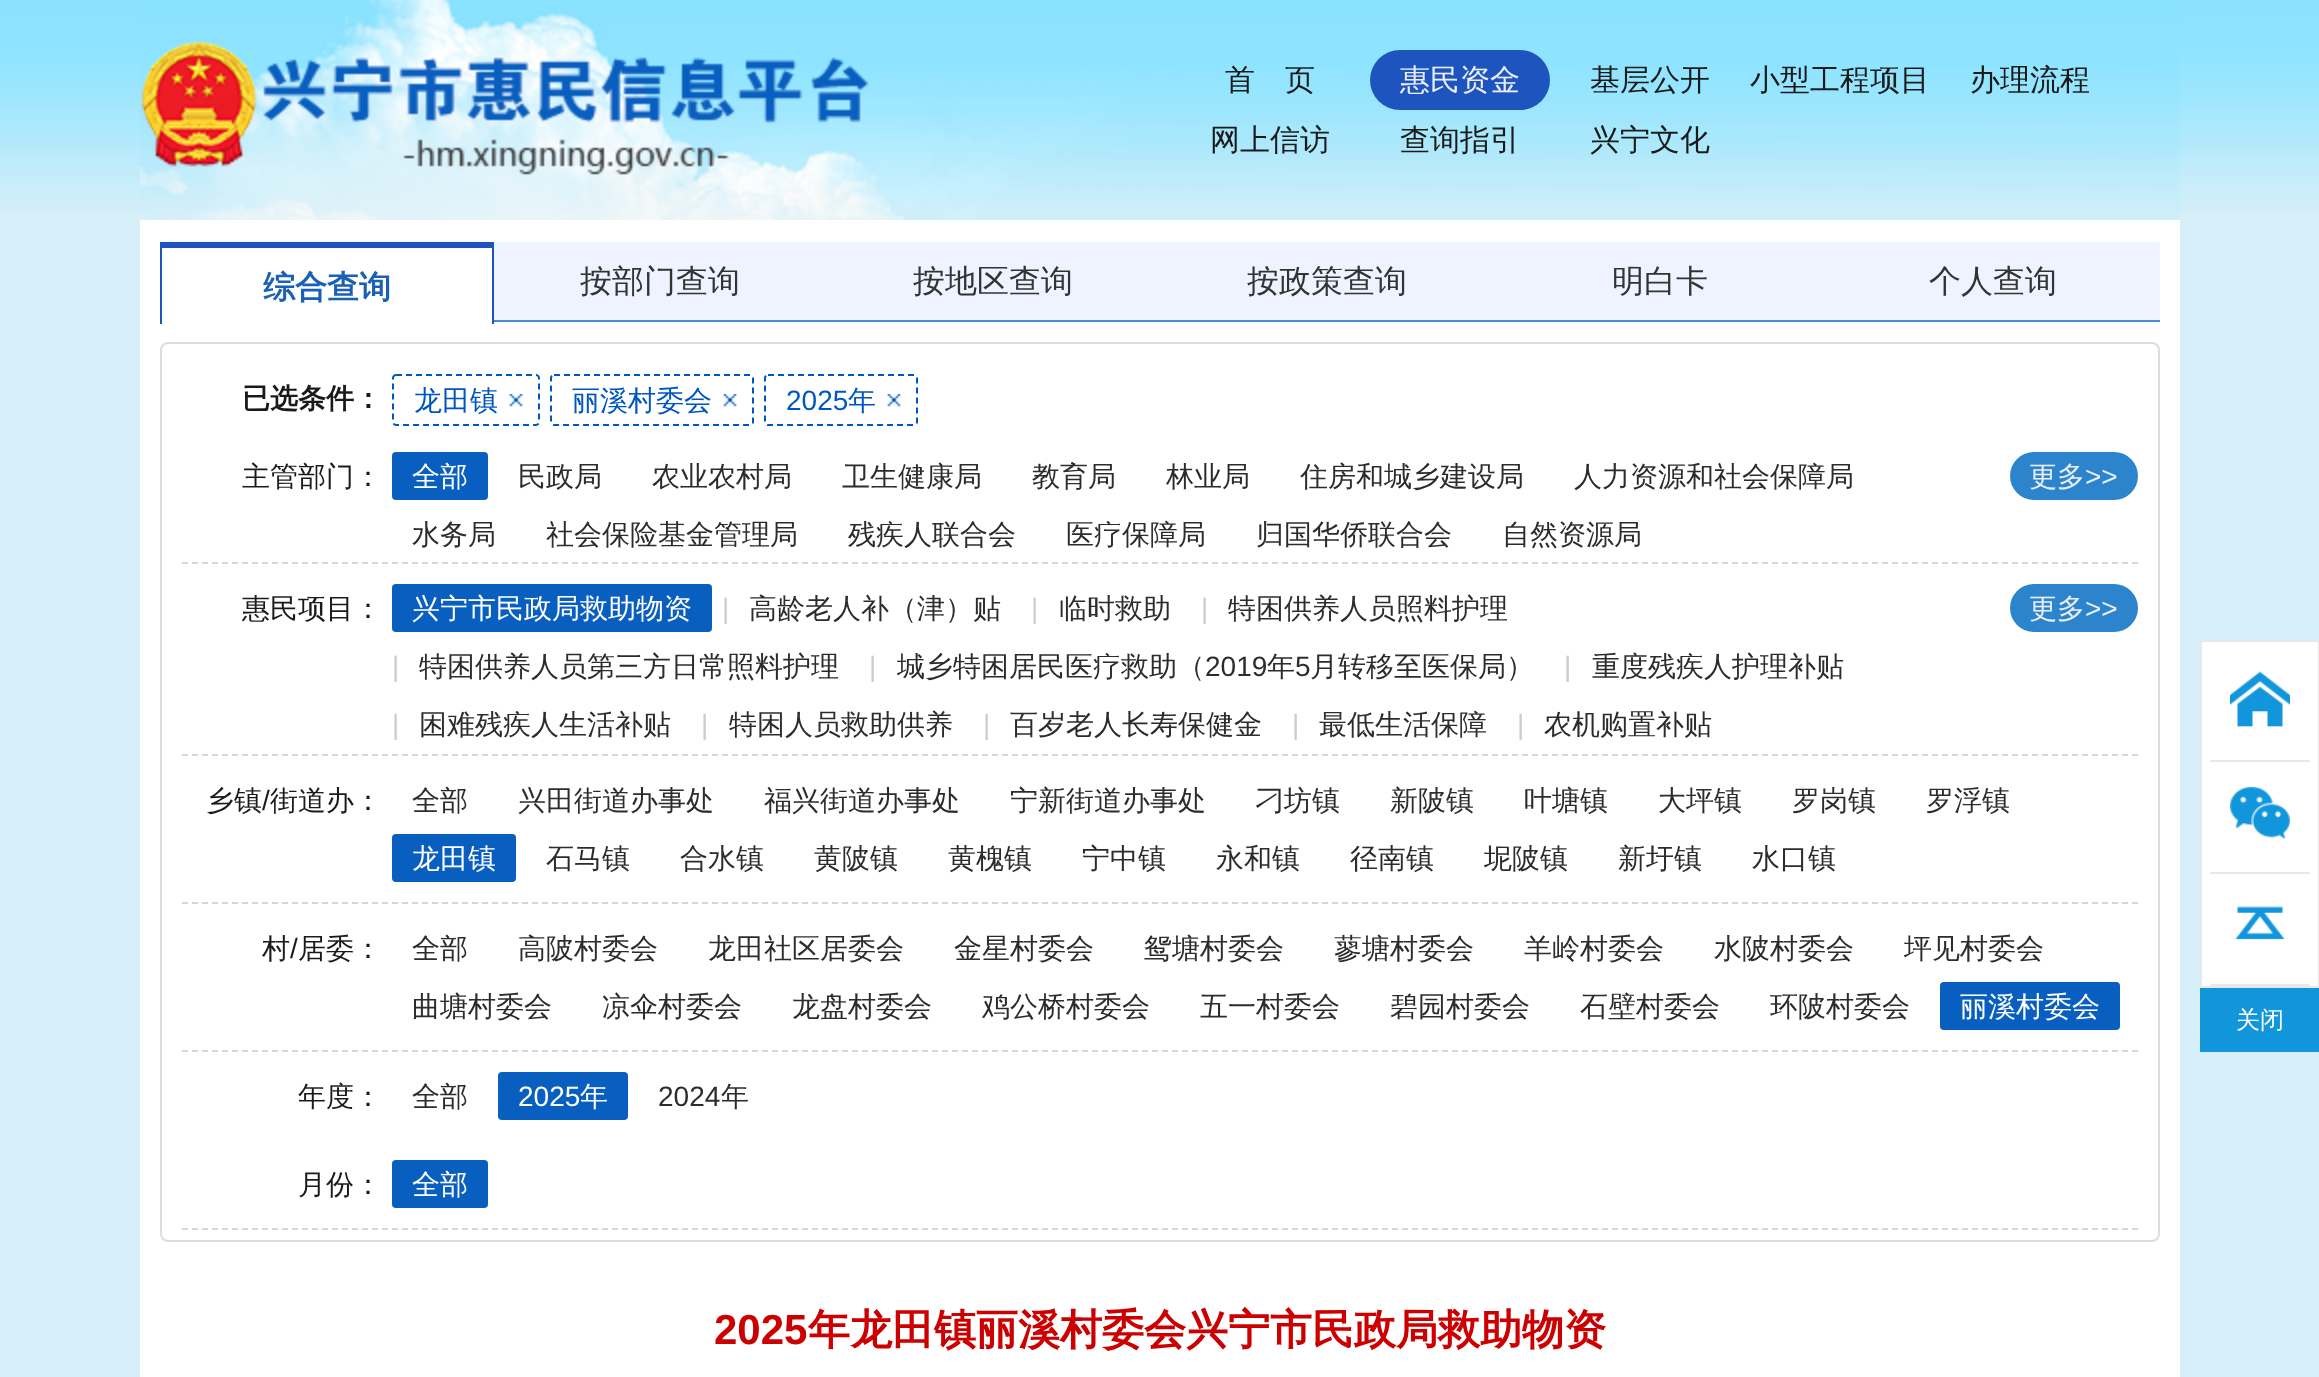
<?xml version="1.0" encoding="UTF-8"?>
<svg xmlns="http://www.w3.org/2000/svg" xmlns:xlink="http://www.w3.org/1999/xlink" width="2319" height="1377">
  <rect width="100%" height="100%" fill="#d7eff8" />
  <image x="0" y="0" width="2319" height="211" xlink:href="image1.png" />
  <image x="140" y="0" width="2040" height="220" xlink:href="image2.png" />
  <rect x="1370" y="50" width="180" height="60" rx="30" fill="#1e54be" />
  <rect x="140" y="220" width="2040" height="1157" fill="#ffffff" />
  <rect x="494" y="242" width="1666" height="78" fill="#edf3ff" />
  <rect x="494" y="320" width="1666" height="2" fill="#4c8ad4" />
  <rect x="160" y="242" width="334" height="6" fill="#1e54be" />
  <rect x="492" y="242" width="2" height="82" fill="#1e54be" />
  <rect x="160" y="242" width="2" height="82" fill="#1e54be" />
  <rect x="161" y="343" width="1998" height="898" rx="7" fill="none" stroke="#dddddd" stroke-width="2" />
  <image x="509" y="394" width="14" height="13" xlink:href="image3.png" />
  <path d="M 396 375 h 140 c 1.5 0 3 1.5 3 3 v 44 c 0 1.5 -1.5 3 -3 3 h -140 c -1.5 0 -3 -1.5 -3 -3 v -44 c 0 -1.5 1.5 -3 3 -3 z" fill="none" stroke="#0056c1" stroke-width="2" stroke-dasharray="6 4" />
  <image x="723" y="394" width="14" height="13" xlink:href="image3.png" />
  <path d="M 554 375 h 196 c 1.5 0 3 1.5 3 3 v 44 c 0 1.5 -1.5 3 -3 3 h -196 c -1.5 0 -3 -1.5 -3 -3 v -44 c 0 -1.5 1.5 -3 3 -3 z" fill="none" stroke="#0056c1" stroke-width="2" stroke-dasharray="6 4" />
  <image x="887" y="394" width="14" height="13" xlink:href="image3.png" />
  <path d="M 768 375 h 146 c 1.5 0 3 1.5 3 3 v 44 c 0 1.5 -1.5 3 -3 3 h -146 c -1.5 0 -3 -1.5 -3 -3 v -44 c 0 -1.5 1.5 -3 3 -3 z" fill="none" stroke="#0056c1" stroke-width="2" stroke-dasharray="6 4" />
  <path d="M 182 563 h 1956" fill="none" stroke="#d6d6d6" stroke-width="2" stroke-dasharray="6 4" />
  <rect x="392" y="452" width="96" height="48" rx="4" fill="#095fbf" />
  <rect x="2010" y="452" width="128" height="48" rx="24" fill="#2c85cc" />
  <path d="M 182 755 h 1956" fill="none" stroke="#d6d6d6" stroke-width="2" stroke-dasharray="6 4" />
  <rect x="392" y="584" width="320" height="48" rx="4" fill="#095fbf" />
  <rect x="2010" y="584" width="128" height="48" rx="24" fill="#2c85cc" />
  <path d="M 182 903 h 1956" fill="none" stroke="#d6d6d6" stroke-width="2" stroke-dasharray="6 4" />
  <rect x="392" y="834" width="124" height="48" rx="4" fill="#095fbf" />
  <path d="M 182 1051 h 1956" fill="none" stroke="#d6d6d6" stroke-width="2" stroke-dasharray="6 4" />
  <rect x="1940" y="982" width="180" height="48" rx="4" fill="#095fbf" />
  <rect x="498" y="1072" width="130" height="48" rx="4" fill="#095fbf" />
  <path d="M 182 1229 h 1956" fill="none" stroke="#d6d6d6" stroke-width="2" stroke-dasharray="6 4" />
  <rect x="392" y="1160" width="96" height="48" rx="4" fill="#095fbf" />
  <rect x="2201" y="641" width="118" height="346" fill="#ffffff" stroke="#e8e8e8" stroke-width="2" />
  <rect x="2210" y="760" width="100" height="2" fill="#e8e8e8" />
  <image x="2230" y="671" width="60" height="56" xlink:href="image4.png" />
  <rect x="2210" y="872" width="100" height="2" fill="#e8e8e8" />
  <image x="2230" y="786" width="60" height="53" xlink:href="image5.png" />
  <rect x="2210" y="984" width="100" height="2" fill="#e8e8e8" />
  <image x="2235" y="906" width="50" height="34" xlink:href="image6.png" />
  <rect x="2200" y="988" width="119" height="64" fill="#1296db" />
  <text x="1225" y="90" style="font-family: WenQuanYi Zen Hei; font-size: 30px; font-weight: 500; fill: #1a1a1a">首　页</text>
  <text x="1400" y="90" style="font-family: WenQuanYi Zen Hei; font-size: 30px; font-weight: 500; fill: #ebeef7">惠民资金</text>
  <text x="1590" y="90" style="font-family: WenQuanYi Zen Hei; font-size: 30px; font-weight: 500; fill: #1a1a1a">基层公开</text>
  <text x="1750" y="90" style="font-family: WenQuanYi Zen Hei; font-size: 30px; font-weight: 500; fill: #1a1a1a">小型工程项目</text>
  <text x="1970" y="90" style="font-family: WenQuanYi Zen Hei; font-size: 30px; font-weight: 500; fill: #1a1a1a">办理流程</text>
  <text x="1210" y="150" style="font-family: WenQuanYi Zen Hei; font-size: 30px; font-weight: 500; fill: #1a1a1a">网上信访</text>
  <text x="1400" y="150" style="font-family: WenQuanYi Zen Hei; font-size: 30px; font-weight: 500; fill: #1a1a1a">查询指引</text>
  <text x="1590" y="150" style="font-family: WenQuanYi Zen Hei; font-size: 30px; font-weight: 500; fill: #1a1a1a">兴宁文化</text>
  <text x="263" y="298" style="font-family: WenQuanYi Zen Hei; font-size: 32px; font-weight: bold; fill: #1a61b6">综合查询</text>
  <text x="580" y="292" style="font-family: WenQuanYi Zen Hei; font-size: 32px; font-weight: 500; fill: #333333">按部门查询</text>
  <text x="913" y="292" style="font-family: WenQuanYi Zen Hei; font-size: 32px; font-weight: 500; fill: #333333">按地区查询</text>
  <text x="1247" y="292" style="font-family: WenQuanYi Zen Hei; font-size: 32px; font-weight: 500; fill: #333333">按政策查询</text>
  <text x="1612" y="292" style="font-family: WenQuanYi Zen Hei; font-size: 32px; font-weight: 500; fill: #333333">明白卡</text>
  <text x="1929" y="292" style="font-family: WenQuanYi Zen Hei; font-size: 32px; font-weight: 500; fill: #333333">个人查询</text>
  <text x="242" y="408" style="font-family: WenQuanYi Zen Hei; font-size: 28px; font-weight: bold; fill: #1a1a1a">已选条件：</text>
  <text x="414" y="410" style="font-family: WenQuanYi Zen Hei; font-size: 28px; font-weight: 500; fill: #0056c1">龙田镇</text>
  <text x="572" y="410" style="font-family: WenQuanYi Zen Hei; font-size: 28px; font-weight: 500; fill: #0056c1">丽溪村委会</text>
  <text x="786" y="410" style="font-family: Liberation Sans; font-size: 28px; fill: #0056c1">2025</text>
  <text x="848" y="410" style="font-family: WenQuanYi Zen Hei; font-size: 28px; font-weight: 500; fill: #0056c1">年</text>
  <text x="242" y="486" style="font-family: WenQuanYi Zen Hei; font-size: 28px; font-weight: 500; fill: #1a1a1a">主管部门：</text>
  <text x="412" y="486" style="font-family: WenQuanYi Zen Hei; font-size: 28px; font-weight: 500; fill: #ffffff">全部</text>
  <text x="518" y="486" style="font-family: WenQuanYi Zen Hei; font-size: 28px; font-weight: 500; fill: #2c2c2c">民政局</text>
  <text x="652" y="486" style="font-family: WenQuanYi Zen Hei; font-size: 28px; font-weight: 500; fill: #2c2c2c">农业农村局</text>
  <text x="842" y="486" style="font-family: WenQuanYi Zen Hei; font-size: 28px; font-weight: 500; fill: #2c2c2c">卫生健康局</text>
  <text x="1032" y="486" style="font-family: WenQuanYi Zen Hei; font-size: 28px; font-weight: 500; fill: #2c2c2c">教育局</text>
  <text x="1166" y="486" style="font-family: WenQuanYi Zen Hei; font-size: 28px; font-weight: 500; fill: #2c2c2c">林业局</text>
  <text x="1300" y="486" style="font-family: WenQuanYi Zen Hei; font-size: 28px; font-weight: 500; fill: #2c2c2c">住房和城乡建设局</text>
  <text x="1574" y="486" style="font-family: WenQuanYi Zen Hei; font-size: 28px; font-weight: 500; fill: #2c2c2c">人力资源和社会保障局</text>
  <text x="2029" y="486" style="font-family: WenQuanYi Zen Hei; font-size: 28px; font-weight: 500; fill: #ebeef7">更多</text>
  <text x="2085" y="486" style="font-family: Liberation Sans; font-size: 28px; fill: #ebeef7">&gt;&gt;</text>
  <text x="412" y="544" style="font-family: WenQuanYi Zen Hei; font-size: 28px; font-weight: 500; fill: #2c2c2c">水务局</text>
  <text x="546" y="544" style="font-family: WenQuanYi Zen Hei; font-size: 28px; font-weight: 500; fill: #2c2c2c">社会保险基金管理局</text>
  <text x="848" y="544" style="font-family: WenQuanYi Zen Hei; font-size: 28px; font-weight: 500; fill: #2c2c2c">残疾人联合会</text>
  <text x="1066" y="544" style="font-family: WenQuanYi Zen Hei; font-size: 28px; font-weight: 500; fill: #2c2c2c">医疗保障局</text>
  <text x="1256" y="544" style="font-family: WenQuanYi Zen Hei; font-size: 28px; font-weight: 500; fill: #2c2c2c">归国华侨联合会</text>
  <text x="1502" y="544" style="font-family: WenQuanYi Zen Hei; font-size: 28px; font-weight: 500; fill: #2c2c2c">自然资源局</text>
  <text x="242" y="618" style="font-family: WenQuanYi Zen Hei; font-size: 28px; font-weight: 500; fill: #1a1a1a">惠民项目：</text>
  <text x="412" y="618" style="font-family: WenQuanYi Zen Hei; font-size: 28px; font-weight: 500; fill: #ffffff">兴宁市民政局救助物资</text>
  <text x="722" y="618" style="font-family: Liberation Sans; font-size: 28px; fill: #cccccc">|</text>
  <text x="749" y="618" style="font-family: WenQuanYi Zen Hei; font-size: 28px; font-weight: 500; fill: #2c2c2c">高龄老人补（津）贴</text>
  <text x="1031" y="618" style="font-family: Liberation Sans; font-size: 28px; fill: #cccccc">|</text>
  <text x="1059" y="618" style="font-family: WenQuanYi Zen Hei; font-size: 28px; font-weight: 500; fill: #2c2c2c">临时救助</text>
  <text x="1201" y="618" style="font-family: Liberation Sans; font-size: 28px; fill: #cccccc">|</text>
  <text x="1228" y="618" style="font-family: WenQuanYi Zen Hei; font-size: 28px; font-weight: 500; fill: #2c2c2c">特困供养人员照料护理</text>
  <text x="2029" y="618" style="font-family: WenQuanYi Zen Hei; font-size: 28px; font-weight: 500; fill: #ebeef7">更多</text>
  <text x="2085" y="618" style="font-family: Liberation Sans; font-size: 28px; fill: #ebeef7">&gt;&gt;</text>
  <text x="392" y="676" style="font-family: Liberation Sans; font-size: 28px; fill: #cccccc">|</text>
  <text x="419" y="676" style="font-family: WenQuanYi Zen Hei; font-size: 28px; font-weight: 500; fill: #2c2c2c">特困供养人员第三方日常照料护理</text>
  <text x="869" y="676" style="font-family: Liberation Sans; font-size: 28px; fill: #cccccc">|</text>
  <text x="897" y="676" style="font-family: WenQuanYi Zen Hei; font-size: 28px; font-weight: 500; fill: #2c2c2c">城乡特困居民医疗救助（</text>
  <text x="1205" y="676" style="font-family: Liberation Sans; font-size: 28px; fill: #2c2c2c">2019</text>
  <text x="1267" y="676" style="font-family: WenQuanYi Zen Hei; font-size: 28px; font-weight: 500; fill: #2c2c2c">年</text>
  <text x="1295" y="676" style="font-family: Liberation Sans; font-size: 28px; fill: #2c2c2c">5</text>
  <text x="1310" y="676" style="font-family: WenQuanYi Zen Hei; font-size: 28px; font-weight: 500; fill: #2c2c2c">月转移至医保局）</text>
  <text x="1564" y="676" style="font-family: Liberation Sans; font-size: 28px; fill: #cccccc">|</text>
  <text x="1592" y="676" style="font-family: WenQuanYi Zen Hei; font-size: 28px; font-weight: 500; fill: #2c2c2c">重度残疾人护理补贴</text>
  <text x="392" y="734" style="font-family: Liberation Sans; font-size: 28px; fill: #cccccc">|</text>
  <text x="419" y="734" style="font-family: WenQuanYi Zen Hei; font-size: 28px; font-weight: 500; fill: #2c2c2c">困难残疾人生活补贴</text>
  <text x="701" y="734" style="font-family: Liberation Sans; font-size: 28px; fill: #cccccc">|</text>
  <text x="729" y="734" style="font-family: WenQuanYi Zen Hei; font-size: 28px; font-weight: 500; fill: #2c2c2c">特困人员救助供养</text>
  <text x="983" y="734" style="font-family: Liberation Sans; font-size: 28px; fill: #cccccc">|</text>
  <text x="1010" y="734" style="font-family: WenQuanYi Zen Hei; font-size: 28px; font-weight: 500; fill: #2c2c2c">百岁老人长寿保健金</text>
  <text x="1292" y="734" style="font-family: Liberation Sans; font-size: 28px; fill: #cccccc">|</text>
  <text x="1319" y="734" style="font-family: WenQuanYi Zen Hei; font-size: 28px; font-weight: 500; fill: #2c2c2c">最低生活保障</text>
  <text x="1517" y="734" style="font-family: Liberation Sans; font-size: 28px; fill: #cccccc">|</text>
  <text x="1544" y="734" style="font-family: WenQuanYi Zen Hei; font-size: 28px; font-weight: 500; fill: #2c2c2c">农机购置补贴</text>
  <text x="206" y="810" style="font-family: WenQuanYi Zen Hei; font-size: 28px; font-weight: 500; fill: #1a1a1a">乡镇</text>
  <text x="262" y="810" style="font-family: Liberation Sans; font-size: 28px; fill: #1a1a1a">/</text>
  <text x="270" y="810" style="font-family: WenQuanYi Zen Hei; font-size: 28px; font-weight: 500; fill: #1a1a1a">街道办：</text>
  <text x="412" y="810" style="font-family: WenQuanYi Zen Hei; font-size: 28px; font-weight: 500; fill: #2c2c2c">全部</text>
  <text x="518" y="810" style="font-family: WenQuanYi Zen Hei; font-size: 28px; font-weight: 500; fill: #2c2c2c">兴田街道办事处</text>
  <text x="764" y="810" style="font-family: WenQuanYi Zen Hei; font-size: 28px; font-weight: 500; fill: #2c2c2c">福兴街道办事处</text>
  <text x="1010" y="810" style="font-family: WenQuanYi Zen Hei; font-size: 28px; font-weight: 500; fill: #2c2c2c">宁新街道办事处</text>
  <text x="1256" y="810" style="font-family: WenQuanYi Zen Hei; font-size: 28px; font-weight: 500; fill: #2c2c2c">刁坊镇</text>
  <text x="1390" y="810" style="font-family: WenQuanYi Zen Hei; font-size: 28px; font-weight: 500; fill: #2c2c2c">新陂镇</text>
  <text x="1524" y="810" style="font-family: WenQuanYi Zen Hei; font-size: 28px; font-weight: 500; fill: #2c2c2c">叶塘镇</text>
  <text x="1658" y="810" style="font-family: WenQuanYi Zen Hei; font-size: 28px; font-weight: 500; fill: #2c2c2c">大坪镇</text>
  <text x="1792" y="810" style="font-family: WenQuanYi Zen Hei; font-size: 28px; font-weight: 500; fill: #2c2c2c">罗岗镇</text>
  <text x="1926" y="810" style="font-family: WenQuanYi Zen Hei; font-size: 28px; font-weight: 500; fill: #2c2c2c">罗浮镇</text>
  <text x="412" y="868" style="font-family: WenQuanYi Zen Hei; font-size: 28px; font-weight: 500; fill: #ffffff">龙田镇</text>
  <text x="546" y="868" style="font-family: WenQuanYi Zen Hei; font-size: 28px; font-weight: 500; fill: #2c2c2c">石马镇</text>
  <text x="680" y="868" style="font-family: WenQuanYi Zen Hei; font-size: 28px; font-weight: 500; fill: #2c2c2c">合水镇</text>
  <text x="814" y="868" style="font-family: WenQuanYi Zen Hei; font-size: 28px; font-weight: 500; fill: #2c2c2c">黄陂镇</text>
  <text x="948" y="868" style="font-family: WenQuanYi Zen Hei; font-size: 28px; font-weight: 500; fill: #2c2c2c">黄槐镇</text>
  <text x="1082" y="868" style="font-family: WenQuanYi Zen Hei; font-size: 28px; font-weight: 500; fill: #2c2c2c">宁中镇</text>
  <text x="1216" y="868" style="font-family: WenQuanYi Zen Hei; font-size: 28px; font-weight: 500; fill: #2c2c2c">永和镇</text>
  <text x="1350" y="868" style="font-family: WenQuanYi Zen Hei; font-size: 28px; font-weight: 500; fill: #2c2c2c">径南镇</text>
  <text x="1484" y="868" style="font-family: WenQuanYi Zen Hei; font-size: 28px; font-weight: 500; fill: #2c2c2c">坭陂镇</text>
  <text x="1618" y="868" style="font-family: WenQuanYi Zen Hei; font-size: 28px; font-weight: 500; fill: #2c2c2c">新圩镇</text>
  <text x="1752" y="868" style="font-family: WenQuanYi Zen Hei; font-size: 28px; font-weight: 500; fill: #2c2c2c">水口镇</text>
  <text x="262" y="958" style="font-family: WenQuanYi Zen Hei; font-size: 28px; font-weight: 500; fill: #1a1a1a">村</text>
  <text x="290" y="958" style="font-family: Liberation Sans; font-size: 28px; fill: #1a1a1a">/</text>
  <text x="298" y="958" style="font-family: WenQuanYi Zen Hei; font-size: 28px; font-weight: 500; fill: #1a1a1a">居委：</text>
  <text x="412" y="958" style="font-family: WenQuanYi Zen Hei; font-size: 28px; font-weight: 500; fill: #2c2c2c">全部</text>
  <text x="518" y="958" style="font-family: WenQuanYi Zen Hei; font-size: 28px; font-weight: 500; fill: #2c2c2c">高陂村委会</text>
  <text x="708" y="958" style="font-family: WenQuanYi Zen Hei; font-size: 28px; font-weight: 500; fill: #2c2c2c">龙田社区居委会</text>
  <text x="954" y="958" style="font-family: WenQuanYi Zen Hei; font-size: 28px; font-weight: 500; fill: #2c2c2c">金星村委会</text>
  <text x="1144" y="958" style="font-family: WenQuanYi Zen Hei; font-size: 28px; font-weight: 500; fill: #2c2c2c">鸳塘村委会</text>
  <text x="1334" y="958" style="font-family: WenQuanYi Zen Hei; font-size: 28px; font-weight: 500; fill: #2c2c2c">蓼塘村委会</text>
  <text x="1524" y="958" style="font-family: WenQuanYi Zen Hei; font-size: 28px; font-weight: 500; fill: #2c2c2c">羊岭村委会</text>
  <text x="1714" y="958" style="font-family: WenQuanYi Zen Hei; font-size: 28px; font-weight: 500; fill: #2c2c2c">水陂村委会</text>
  <text x="1904" y="958" style="font-family: WenQuanYi Zen Hei; font-size: 28px; font-weight: 500; fill: #2c2c2c">坪见村委会</text>
  <text x="412" y="1016" style="font-family: WenQuanYi Zen Hei; font-size: 28px; font-weight: 500; fill: #2c2c2c">曲塘村委会</text>
  <text x="602" y="1016" style="font-family: WenQuanYi Zen Hei; font-size: 28px; font-weight: 500; fill: #2c2c2c">凉伞村委会</text>
  <text x="792" y="1016" style="font-family: WenQuanYi Zen Hei; font-size: 28px; font-weight: 500; fill: #2c2c2c">龙盘村委会</text>
  <text x="982" y="1016" style="font-family: WenQuanYi Zen Hei; font-size: 28px; font-weight: 500; fill: #2c2c2c">鸡公桥村委会</text>
  <text x="1200" y="1016" style="font-family: WenQuanYi Zen Hei; font-size: 28px; font-weight: 500; fill: #2c2c2c">五一村委会</text>
  <text x="1390" y="1016" style="font-family: WenQuanYi Zen Hei; font-size: 28px; font-weight: 500; fill: #2c2c2c">碧园村委会</text>
  <text x="1580" y="1016" style="font-family: WenQuanYi Zen Hei; font-size: 28px; font-weight: 500; fill: #2c2c2c">石壁村委会</text>
  <text x="1770" y="1016" style="font-family: WenQuanYi Zen Hei; font-size: 28px; font-weight: 500; fill: #2c2c2c">环陂村委会</text>
  <text x="1960" y="1016" style="font-family: WenQuanYi Zen Hei; font-size: 28px; font-weight: 500; fill: #ffffff">丽溪村委会</text>
  <text x="298" y="1106" style="font-family: WenQuanYi Zen Hei; font-size: 28px; font-weight: 500; fill: #1a1a1a">年度：</text>
  <text x="412" y="1106" style="font-family: WenQuanYi Zen Hei; font-size: 28px; font-weight: 500; fill: #2c2c2c">全部</text>
  <text x="518" y="1106" style="font-family: Liberation Sans; font-size: 28px; fill: #ffffff">2025</text>
  <text x="580" y="1106" style="font-family: WenQuanYi Zen Hei; font-size: 28px; font-weight: 500; fill: #ffffff">年</text>
  <text x="658" y="1106" style="font-family: Liberation Sans; font-size: 28px; fill: #2c2c2c">2024</text>
  <text x="721" y="1106" style="font-family: WenQuanYi Zen Hei; font-size: 28px; font-weight: 500; fill: #2c2c2c">年</text>
  <text x="298" y="1194" style="font-family: WenQuanYi Zen Hei; font-size: 28px; font-weight: 500; fill: #1a1a1a">月份：</text>
  <text x="412" y="1194" style="font-family: WenQuanYi Zen Hei; font-size: 28px; font-weight: 500; fill: #ffffff">全部</text>
  <text x="714" y="1344" style="font-family: Liberation Sans; font-size: 42px; font-weight: bold; fill: #cc0000">2025</text>
  <text x="808" y="1344" style="font-family: WenQuanYi Zen Hei; font-size: 42px; font-weight: bold; fill: #cc0000">年龙田镇丽溪村委会兴宁市民政局救助物资</text>
  <text x="2236" y="1028" style="font-family: WenQuanYi Zen Hei; font-size: 24px; font-weight: 500; fill: #ffffff">关闭</text>
</svg>
